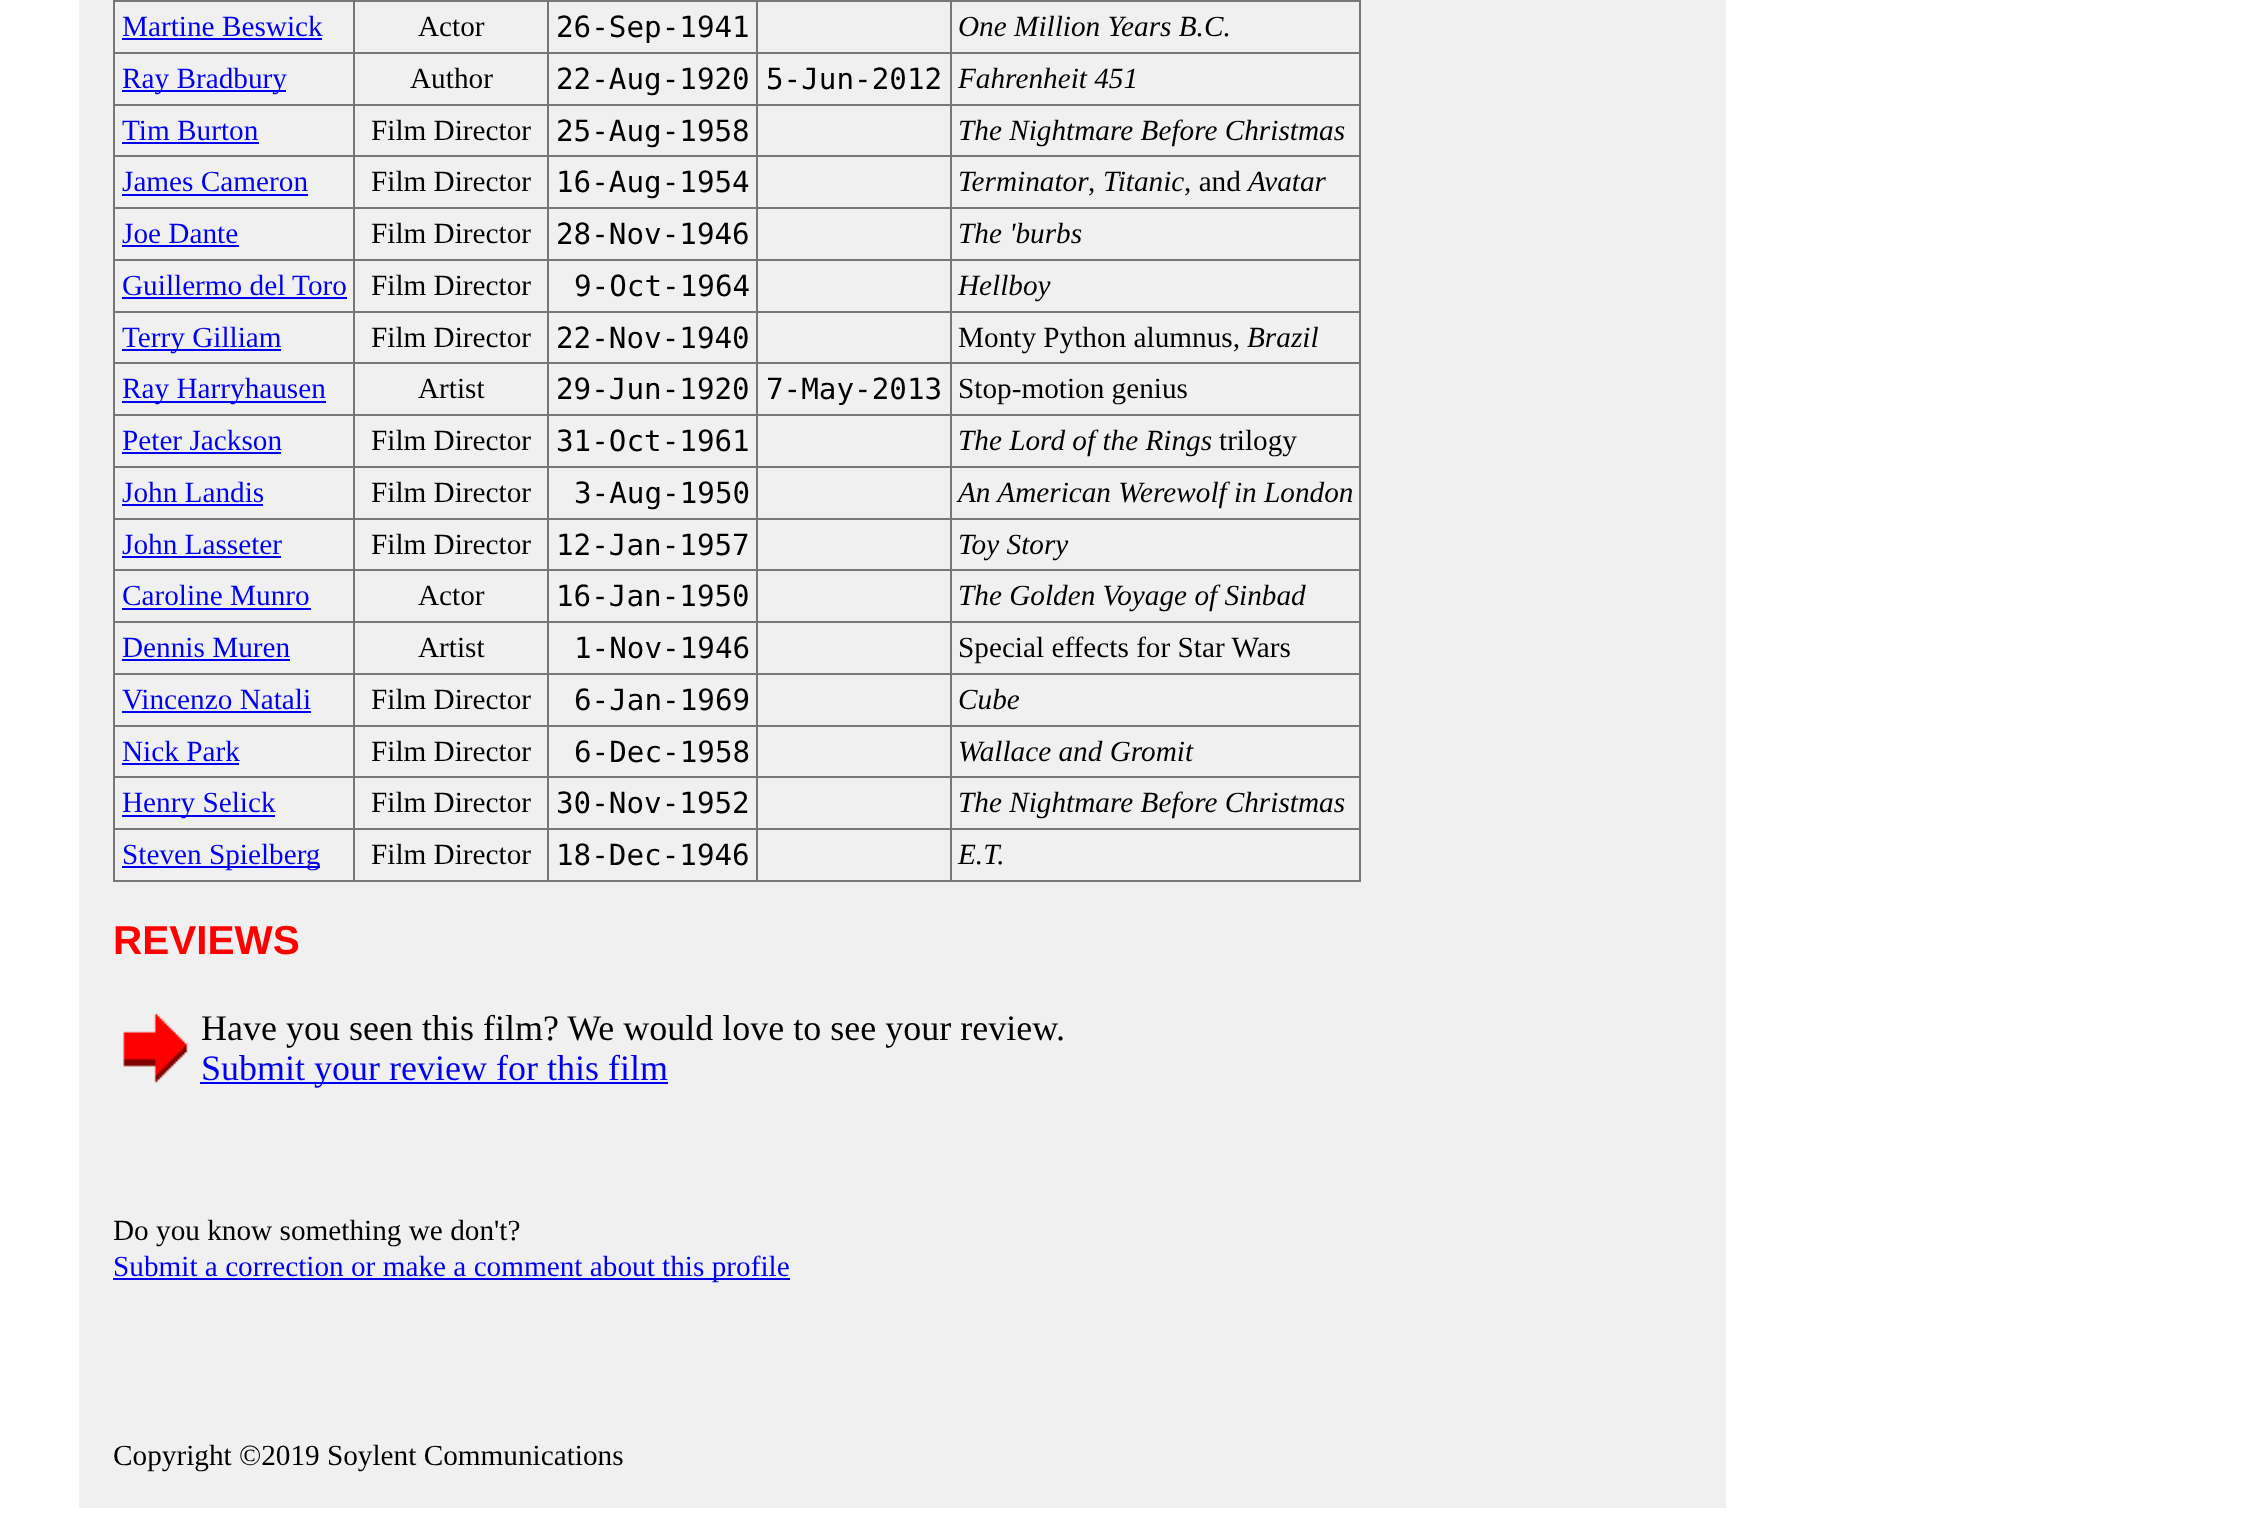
<?xml version="1.0" encoding="UTF-8"?>
<svg xmlns="http://www.w3.org/2000/svg" xmlns:xlink="http://www.w3.org/1999/xlink" width="2264" height="1525">
  <rect width="100%" height="100%" fill="#ffffff" />
  <rect x="79" width="1647" height="1508" fill="#f0f0f0" />
  <rect x="1359" width="2" height="882" fill="#777777" />
  <rect x="113" y="880" width="1248" height="2" fill="#777777" />
  <rect x="113" width="2" height="882" fill="#777777" />
  <rect x="950" width="411" height="2" fill="#777777" />
  <rect x="950" y="52" width="411" height="2" fill="#777777" />
  <rect x="950" y="104" width="411" height="2" fill="#777777" />
  <rect x="950" y="155" width="411" height="2" fill="#777777" />
  <rect x="950" y="207" width="411" height="2" fill="#777777" />
  <rect x="950" y="259" width="411" height="2" fill="#777777" />
  <rect x="950" y="311" width="411" height="2" fill="#777777" />
  <rect x="950" y="362" width="411" height="2" fill="#777777" />
  <rect x="950" y="414" width="411" height="2" fill="#777777" />
  <rect x="950" y="466" width="411" height="2" fill="#777777" />
  <rect x="950" y="518" width="411" height="2" fill="#777777" />
  <rect x="950" y="569" width="411" height="2" fill="#777777" />
  <rect x="950" y="621" width="411" height="2" fill="#777777" />
  <rect x="950" y="673" width="411" height="2" fill="#777777" />
  <rect x="950" y="725" width="411" height="2" fill="#777777" />
  <rect x="950" y="776" width="411" height="2" fill="#777777" />
  <rect x="950" y="828" width="411" height="2" fill="#777777" />
  <rect x="950" y="828" width="2" height="54" fill="#777777" />
  <rect x="756" y="828" width="196" height="2" fill="#777777" />
  <rect x="950" y="776" width="2" height="54" fill="#777777" />
  <rect x="756" y="776" width="196" height="2" fill="#777777" />
  <rect x="950" y="725" width="2" height="54" fill="#777777" />
  <rect x="756" y="725" width="196" height="2" fill="#777777" />
  <rect x="950" y="673" width="2" height="54" fill="#777777" />
  <rect x="756" y="673" width="196" height="2" fill="#777777" />
  <rect x="950" y="621" width="2" height="54" fill="#777777" />
  <rect x="756" y="621" width="196" height="2" fill="#777777" />
  <rect x="950" y="569" width="2" height="54" fill="#777777" />
  <rect x="756" y="569" width="196" height="2" fill="#777777" />
  <rect x="950" y="518" width="2" height="54" fill="#777777" />
  <rect x="756" y="518" width="196" height="2" fill="#777777" />
  <rect x="950" y="466" width="2" height="54" fill="#777777" />
  <rect x="756" y="466" width="196" height="2" fill="#777777" />
  <rect x="950" y="414" width="2" height="54" fill="#777777" />
  <rect x="756" y="414" width="196" height="2" fill="#777777" />
  <rect x="950" y="362" width="2" height="54" fill="#777777" />
  <rect x="756" y="362" width="196" height="2" fill="#777777" />
  <rect x="950" y="311" width="2" height="54" fill="#777777" />
  <rect x="756" y="311" width="196" height="2" fill="#777777" />
  <rect x="950" y="259" width="2" height="54" fill="#777777" />
  <rect x="756" y="259" width="196" height="2" fill="#777777" />
  <rect x="950" y="207" width="2" height="54" fill="#777777" />
  <rect x="756" y="207" width="196" height="2" fill="#777777" />
  <rect x="950" y="155" width="2" height="54" fill="#777777" />
  <rect x="756" y="155" width="196" height="2" fill="#777777" />
  <rect x="950" y="104" width="2" height="54" fill="#777777" />
  <rect x="756" y="104" width="196" height="2" fill="#777777" />
  <rect x="950" y="52" width="2" height="54" fill="#777777" />
  <rect x="756" y="52" width="196" height="2" fill="#777777" />
  <rect x="950" width="2" height="54" fill="#777777" />
  <rect x="756" width="196" height="2" fill="#777777" />
  <rect x="756" y="828" width="2" height="54" fill="#777777" />
  <rect x="547" y="828" width="211" height="2" fill="#777777" />
  <rect x="756" y="776" width="2" height="54" fill="#777777" />
  <rect x="547" y="776" width="211" height="2" fill="#777777" />
  <rect x="756" y="725" width="2" height="54" fill="#777777" />
  <rect x="547" y="725" width="211" height="2" fill="#777777" />
  <rect x="756" y="673" width="2" height="54" fill="#777777" />
  <rect x="547" y="673" width="211" height="2" fill="#777777" />
  <rect x="756" y="621" width="2" height="54" fill="#777777" />
  <rect x="547" y="621" width="211" height="2" fill="#777777" />
  <rect x="756" y="569" width="2" height="54" fill="#777777" />
  <rect x="547" y="569" width="211" height="2" fill="#777777" />
  <rect x="756" y="518" width="2" height="54" fill="#777777" />
  <rect x="547" y="518" width="211" height="2" fill="#777777" />
  <rect x="756" y="466" width="2" height="54" fill="#777777" />
  <rect x="547" y="466" width="211" height="2" fill="#777777" />
  <rect x="756" y="414" width="2" height="54" fill="#777777" />
  <rect x="547" y="414" width="211" height="2" fill="#777777" />
  <rect x="756" y="362" width="2" height="54" fill="#777777" />
  <rect x="547" y="362" width="211" height="2" fill="#777777" />
  <rect x="756" y="311" width="2" height="54" fill="#777777" />
  <rect x="547" y="311" width="211" height="2" fill="#777777" />
  <rect x="756" y="259" width="2" height="54" fill="#777777" />
  <rect x="547" y="259" width="211" height="2" fill="#777777" />
  <rect x="756" y="207" width="2" height="54" fill="#777777" />
  <rect x="547" y="207" width="211" height="2" fill="#777777" />
  <rect x="756" y="155" width="2" height="54" fill="#777777" />
  <rect x="547" y="155" width="211" height="2" fill="#777777" />
  <rect x="756" y="104" width="2" height="54" fill="#777777" />
  <rect x="547" y="104" width="211" height="2" fill="#777777" />
  <rect x="756" y="52" width="2" height="54" fill="#777777" />
  <rect x="547" y="52" width="211" height="2" fill="#777777" />
  <rect x="756" width="2" height="54" fill="#777777" />
  <rect x="547" width="211" height="2" fill="#777777" />
  <rect x="547" y="828" width="2" height="54" fill="#777777" />
  <rect x="353" y="828" width="196" height="2" fill="#777777" />
  <rect x="547" y="776" width="2" height="54" fill="#777777" />
  <rect x="353" y="776" width="196" height="2" fill="#777777" />
  <rect x="547" y="725" width="2" height="54" fill="#777777" />
  <rect x="353" y="725" width="196" height="2" fill="#777777" />
  <rect x="547" y="673" width="2" height="54" fill="#777777" />
  <rect x="353" y="673" width="196" height="2" fill="#777777" />
  <rect x="547" y="621" width="2" height="54" fill="#777777" />
  <rect x="353" y="621" width="196" height="2" fill="#777777" />
  <rect x="547" y="569" width="2" height="54" fill="#777777" />
  <rect x="353" y="569" width="196" height="2" fill="#777777" />
  <rect x="547" y="518" width="2" height="54" fill="#777777" />
  <rect x="353" y="518" width="196" height="2" fill="#777777" />
  <rect x="547" y="466" width="2" height="54" fill="#777777" />
  <rect x="353" y="466" width="196" height="2" fill="#777777" />
  <rect x="547" y="414" width="2" height="54" fill="#777777" />
  <rect x="353" y="414" width="196" height="2" fill="#777777" />
  <rect x="547" y="362" width="2" height="54" fill="#777777" />
  <rect x="353" y="362" width="196" height="2" fill="#777777" />
  <rect x="547" y="311" width="2" height="54" fill="#777777" />
  <rect x="353" y="311" width="196" height="2" fill="#777777" />
  <rect x="547" y="259" width="2" height="54" fill="#777777" />
  <rect x="353" y="259" width="196" height="2" fill="#777777" />
  <rect x="547" y="207" width="2" height="54" fill="#777777" />
  <rect x="353" y="207" width="196" height="2" fill="#777777" />
  <rect x="547" y="155" width="2" height="54" fill="#777777" />
  <rect x="353" y="155" width="196" height="2" fill="#777777" />
  <rect x="547" y="104" width="2" height="54" fill="#777777" />
  <rect x="353" y="104" width="196" height="2" fill="#777777" />
  <rect x="547" y="52" width="2" height="54" fill="#777777" />
  <rect x="353" y="52" width="196" height="2" fill="#777777" />
  <rect x="547" width="2" height="54" fill="#777777" />
  <rect x="353" width="196" height="2" fill="#777777" />
  <rect x="353" y="828" width="2" height="54" fill="#777777" />
  <rect x="113" y="828" width="243" height="2" fill="#777777" />
  <rect x="353" y="776" width="2" height="54" fill="#777777" />
  <rect x="113" y="776" width="243" height="2" fill="#777777" />
  <rect x="353" y="725" width="2" height="54" fill="#777777" />
  <rect x="113" y="725" width="243" height="2" fill="#777777" />
  <rect x="353" y="673" width="2" height="54" fill="#777777" />
  <rect x="113" y="673" width="243" height="2" fill="#777777" />
  <rect x="353" y="621" width="2" height="54" fill="#777777" />
  <rect x="113" y="621" width="243" height="2" fill="#777777" />
  <rect x="353" y="569" width="2" height="54" fill="#777777" />
  <rect x="113" y="569" width="243" height="2" fill="#777777" />
  <rect x="353" y="518" width="2" height="54" fill="#777777" />
  <rect x="113" y="518" width="243" height="2" fill="#777777" />
  <rect x="353" y="466" width="2" height="54" fill="#777777" />
  <rect x="113" y="466" width="243" height="2" fill="#777777" />
  <rect x="353" y="414" width="2" height="54" fill="#777777" />
  <rect x="113" y="414" width="243" height="2" fill="#777777" />
  <rect x="353" y="362" width="2" height="54" fill="#777777" />
  <rect x="113" y="362" width="243" height="2" fill="#777777" />
  <rect x="353" y="311" width="2" height="54" fill="#777777" />
  <rect x="113" y="311" width="243" height="2" fill="#777777" />
  <rect x="353" y="259" width="2" height="54" fill="#777777" />
  <rect x="113" y="259" width="243" height="2" fill="#777777" />
  <rect x="353" y="207" width="2" height="54" fill="#777777" />
  <rect x="113" y="207" width="243" height="2" fill="#777777" />
  <rect x="353" y="155" width="2" height="54" fill="#777777" />
  <rect x="113" y="155" width="243" height="2" fill="#777777" />
  <rect x="353" y="104" width="2" height="54" fill="#777777" />
  <rect x="113" y="104" width="243" height="2" fill="#777777" />
  <rect x="353" y="52" width="2" height="54" fill="#777777" />
  <rect x="113" y="52" width="243" height="2" fill="#777777" />
  <rect x="353" width="2" height="54" fill="#777777" />
  <rect x="113" width="243" height="2" fill="#777777" />
  <rect x="122" y="38" width="200" height="2" fill="#0000ee" />
  <rect x="122" y="90" width="164" height="2" fill="#0000ee" />
  <rect x="122" y="142" width="137" height="2" fill="#0000ee" />
  <rect x="122" y="194" width="186" height="2" fill="#0000ee" />
  <rect x="122" y="245" width="117" height="2" fill="#0000ee" />
  <rect x="122" y="297" width="225" height="2" fill="#0000ee" />
  <rect x="122" y="349" width="159" height="2" fill="#0000ee" />
  <rect x="122" y="401" width="204" height="2" fill="#0000ee" />
  <rect x="122" y="452" width="159" height="2" fill="#0000ee" />
  <rect x="122" y="504" width="141" height="2" fill="#0000ee" />
  <rect x="122" y="556" width="159" height="2" fill="#0000ee" />
  <rect x="122" y="608" width="189" height="2" fill="#0000ee" />
  <rect x="122" y="659" width="168" height="2" fill="#0000ee" />
  <rect x="122" y="711" width="189" height="2" fill="#0000ee" />
  <rect x="122" y="763" width="117" height="2" fill="#0000ee" />
  <rect x="122" y="815" width="153" height="2" fill="#0000ee" />
  <rect x="122" y="866" width="198" height="2" fill="#0000ee" />
  <image x="123" y="1013" width="65" height="70" xlink:href="image1.png" />
  <rect x="200" y="1082" width="468" height="2" fill="#0000ee" />
  <rect x="113" y="1278" width="677" height="2" fill="#0000ee" />
  <text x="122" y="36" style="font-family: Liberation Serif; font-size: 29.25px; fill: #0000ee">Martine Beswick</text>
  <text x="418" y="36" style="font-family: Liberation Serif; font-size: 29.25px; fill: #000000">Actor</text>
  <text x="556" y="37" style="font-family: DejaVu Sans Mono; font-size: 29.25px; fill: #000000">26-Sep-1941</text>
  <text x="958" y="36" style="font-family: Liberation Serif; font-size: 29.25px; font-style: italic; fill: #000000">One Million Years B.C.</text>
  <text x="122" y="88" style="font-family: Liberation Serif; font-size: 29.25px; fill: #0000ee">Ray Bradbury</text>
  <text x="410" y="88" style="font-family: Liberation Serif; font-size: 29.25px; fill: #000000">Author</text>
  <text x="556" y="89" style="font-family: DejaVu Sans Mono; font-size: 29.25px; fill: #000000">22-Aug-1920</text>
  <text x="766" y="89" style="font-family: DejaVu Sans Mono; font-size: 29.25px; fill: #000000">5-Jun-2012</text>
  <text x="958" y="88" style="font-family: Liberation Serif; font-size: 29.25px; font-style: italic; fill: #000000">Fahrenheit 451</text>
  <text x="122" y="140" style="font-family: Liberation Serif; font-size: 29.25px; fill: #0000ee">Tim Burton</text>
  <text x="371" y="140" style="font-family: Liberation Serif; font-size: 29.25px; fill: #000000">Film Director</text>
  <text x="556" y="141" style="font-family: DejaVu Sans Mono; font-size: 29.25px; fill: #000000">25-Aug-1958</text>
  <text x="958" y="140" style="font-family: Liberation Serif; font-size: 29.25px; font-style: italic; fill: #000000">The Nightmare Before Christmas</text>
  <text x="122" y="191" style="font-family: Liberation Serif; font-size: 29.25px; fill: #0000ee">James Cameron</text>
  <text x="371" y="191" style="font-family: Liberation Serif; font-size: 29.25px; fill: #000000">Film Director</text>
  <text x="556" y="192" style="font-family: DejaVu Sans Mono; font-size: 29.25px; fill: #000000">16-Aug-1954</text>
  <text x="958" y="191" style="font-family: Liberation Serif; font-size: 29.25px; font-style: italic; fill: #000000">Terminator</text>
  <text x="1088" y="191" style="font-family: Liberation Serif; font-size: 29.25px; fill: #000000">,</text>
  <text x="1103" y="191" style="font-family: Liberation Serif; font-size: 29.25px; font-style: italic; fill: #000000">Titanic</text>
  <text x="1184" y="191" style="font-family: Liberation Serif; font-size: 29.25px; fill: #000000">, and</text>
  <text x="1248" y="191" style="font-family: Liberation Serif; font-size: 29.25px; font-style: italic; fill: #000000">Avatar</text>
  <text x="122" y="243" style="font-family: Liberation Serif; font-size: 29.25px; fill: #0000ee">Joe Dante</text>
  <text x="371" y="243" style="font-family: Liberation Serif; font-size: 29.25px; fill: #000000">Film Director</text>
  <text x="556" y="244" style="font-family: DejaVu Sans Mono; font-size: 29.25px; fill: #000000">28-Nov-1946</text>
  <text x="958" y="243" style="font-family: Liberation Serif; font-size: 29.25px; font-style: italic; fill: #000000">The 'burbs</text>
  <text x="122" y="295" style="font-family: Liberation Serif; font-size: 29.25px; fill: #0000ee">Guillermo del Toro</text>
  <text x="371" y="295" style="font-family: Liberation Serif; font-size: 29.25px; fill: #000000">Film Director</text>
  <text x="574" y="296" style="font-family: DejaVu Sans Mono; font-size: 29.25px; fill: #000000">9-Oct-1964</text>
  <text x="958" y="295" style="font-family: Liberation Serif; font-size: 29.25px; font-style: italic; fill: #000000">Hellboy</text>
  <text x="122" y="347" style="font-family: Liberation Serif; font-size: 29.25px; fill: #0000ee">Terry Gilliam</text>
  <text x="371" y="347" style="font-family: Liberation Serif; font-size: 29.25px; fill: #000000">Film Director</text>
  <text x="556" y="348" style="font-family: DejaVu Sans Mono; font-size: 29.25px; fill: #000000">22-Nov-1940</text>
  <text x="958" y="347" style="font-family: Liberation Serif; font-size: 29.25px; fill: #000000">Monty Python alumnus,</text>
  <text x="1247" y="347" style="font-family: Liberation Serif; font-size: 29.25px; font-style: italic; fill: #000000">Brazil</text>
  <text x="122" y="398" style="font-family: Liberation Serif; font-size: 29.25px; fill: #0000ee">Ray Harryhausen</text>
  <text x="418" y="398" style="font-family: Liberation Serif; font-size: 29.25px; fill: #000000">Artist</text>
  <text x="556" y="399" style="font-family: DejaVu Sans Mono; font-size: 29.25px; fill: #000000">29-Jun-1920</text>
  <text x="766" y="399" style="font-family: DejaVu Sans Mono; font-size: 29.25px; fill: #000000">7-May-2013</text>
  <text x="958" y="398" style="font-family: Liberation Serif; font-size: 29.25px; fill: #000000">Stop-motion genius</text>
  <text x="122" y="450" style="font-family: Liberation Serif; font-size: 29.25px; fill: #0000ee">Peter Jackson</text>
  <text x="371" y="450" style="font-family: Liberation Serif; font-size: 29.25px; fill: #000000">Film Director</text>
  <text x="556" y="451" style="font-family: DejaVu Sans Mono; font-size: 29.25px; fill: #000000">31-Oct-1961</text>
  <text x="958" y="450" style="font-family: Liberation Serif; font-size: 29.25px; font-style: italic; fill: #000000">The Lord of the Rings</text>
  <text x="1219" y="450" style="font-family: Liberation Serif; font-size: 29.25px; fill: #000000">trilogy</text>
  <text x="122" y="502" style="font-family: Liberation Serif; font-size: 29.25px; fill: #0000ee">John Landis</text>
  <text x="371" y="502" style="font-family: Liberation Serif; font-size: 29.25px; fill: #000000">Film Director</text>
  <text x="574" y="503" style="font-family: DejaVu Sans Mono; font-size: 29.25px; fill: #000000">3-Aug-1950</text>
  <text x="958" y="502" style="font-family: Liberation Serif; font-size: 29.25px; font-style: italic; fill: #000000">An American Werewolf in London</text>
  <text x="122" y="554" style="font-family: Liberation Serif; font-size: 29.25px; fill: #0000ee">John Lasseter</text>
  <text x="371" y="554" style="font-family: Liberation Serif; font-size: 29.25px; fill: #000000">Film Director</text>
  <text x="556" y="555" style="font-family: DejaVu Sans Mono; font-size: 29.25px; fill: #000000">12-Jan-1957</text>
  <text x="958" y="554" style="font-family: Liberation Serif; font-size: 29.25px; font-style: italic; fill: #000000">Toy Story</text>
  <text x="122" y="605" style="font-family: Liberation Serif; font-size: 29.25px; fill: #0000ee">Caroline Munro</text>
  <text x="418" y="605" style="font-family: Liberation Serif; font-size: 29.25px; fill: #000000">Actor</text>
  <text x="556" y="606" style="font-family: DejaVu Sans Mono; font-size: 29.25px; fill: #000000">16-Jan-1950</text>
  <text x="958" y="605" style="font-family: Liberation Serif; font-size: 29.25px; font-style: italic; fill: #000000">The Golden Voyage of Sinbad</text>
  <text x="122" y="657" style="font-family: Liberation Serif; font-size: 29.25px; fill: #0000ee">Dennis Muren</text>
  <text x="418" y="657" style="font-family: Liberation Serif; font-size: 29.25px; fill: #000000">Artist</text>
  <text x="574" y="658" style="font-family: DejaVu Sans Mono; font-size: 29.25px; fill: #000000">1-Nov-1946</text>
  <text x="958" y="657" style="font-family: Liberation Serif; font-size: 29.25px; fill: #000000">Special effects for Star Wars</text>
  <text x="122" y="709" style="font-family: Liberation Serif; font-size: 29.25px; fill: #0000ee">Vincenzo Natali</text>
  <text x="371" y="709" style="font-family: Liberation Serif; font-size: 29.25px; fill: #000000">Film Director</text>
  <text x="574" y="710" style="font-family: DejaVu Sans Mono; font-size: 29.25px; fill: #000000">6-Jan-1969</text>
  <text x="958" y="709" style="font-family: Liberation Serif; font-size: 29.25px; font-style: italic; fill: #000000">Cube</text>
  <text x="122" y="761" style="font-family: Liberation Serif; font-size: 29.25px; fill: #0000ee">Nick Park</text>
  <text x="371" y="761" style="font-family: Liberation Serif; font-size: 29.25px; fill: #000000">Film Director</text>
  <text x="574" y="762" style="font-family: DejaVu Sans Mono; font-size: 29.25px; fill: #000000">6-Dec-1958</text>
  <text x="958" y="761" style="font-family: Liberation Serif; font-size: 29.25px; font-style: italic; fill: #000000">Wallace and Gromit</text>
  <text x="122" y="812" style="font-family: Liberation Serif; font-size: 29.25px; fill: #0000ee">Henry Selick</text>
  <text x="371" y="812" style="font-family: Liberation Serif; font-size: 29.25px; fill: #000000">Film Director</text>
  <text x="556" y="813" style="font-family: DejaVu Sans Mono; font-size: 29.25px; fill: #000000">30-Nov-1952</text>
  <text x="958" y="812" style="font-family: Liberation Serif; font-size: 29.25px; font-style: italic; fill: #000000">The Nightmare Before Christmas</text>
  <text x="122" y="864" style="font-family: Liberation Serif; font-size: 29.25px; fill: #0000ee">Steven Spielberg</text>
  <text x="371" y="864" style="font-family: Liberation Serif; font-size: 29.25px; fill: #000000">Film Director</text>
  <text x="556" y="865" style="font-family: DejaVu Sans Mono; font-size: 29.25px; fill: #000000">18-Dec-1946</text>
  <text x="958" y="864" style="font-family: Liberation Serif; font-size: 29.25px; font-style: italic; fill: #000000">E.T.</text>
  <text x="113" y="954" style="font-family: Liberation Sans; font-size: 40.5px; font-weight: bold; fill: #ff0000">REVIEWS</text>
  <text x="201" y="1040" style="font-family: Liberation Serif; font-size: 36px; fill: #000000">Have you seen this film? We would love to see your review.</text>
  <text x="201" y="1080" style="font-family: Liberation Serif; font-size: 36px; fill: #0000ee">Submit your review for this film</text>
  <text x="113" y="1240" style="font-family: Liberation Serif; font-size: 29.25px; fill: #000000">Do you know something we don't?</text>
  <text x="113" y="1276" style="font-family: Liberation Serif; font-size: 29.25px; fill: #0000ee">Submit a correction or make a comment about this profile</text>
  <text x="113" y="1465" style="font-family: Liberation Serif; font-size: 29.25px; fill: #000000">Copyright ©2019 Soylent Communications</text>
</svg>
